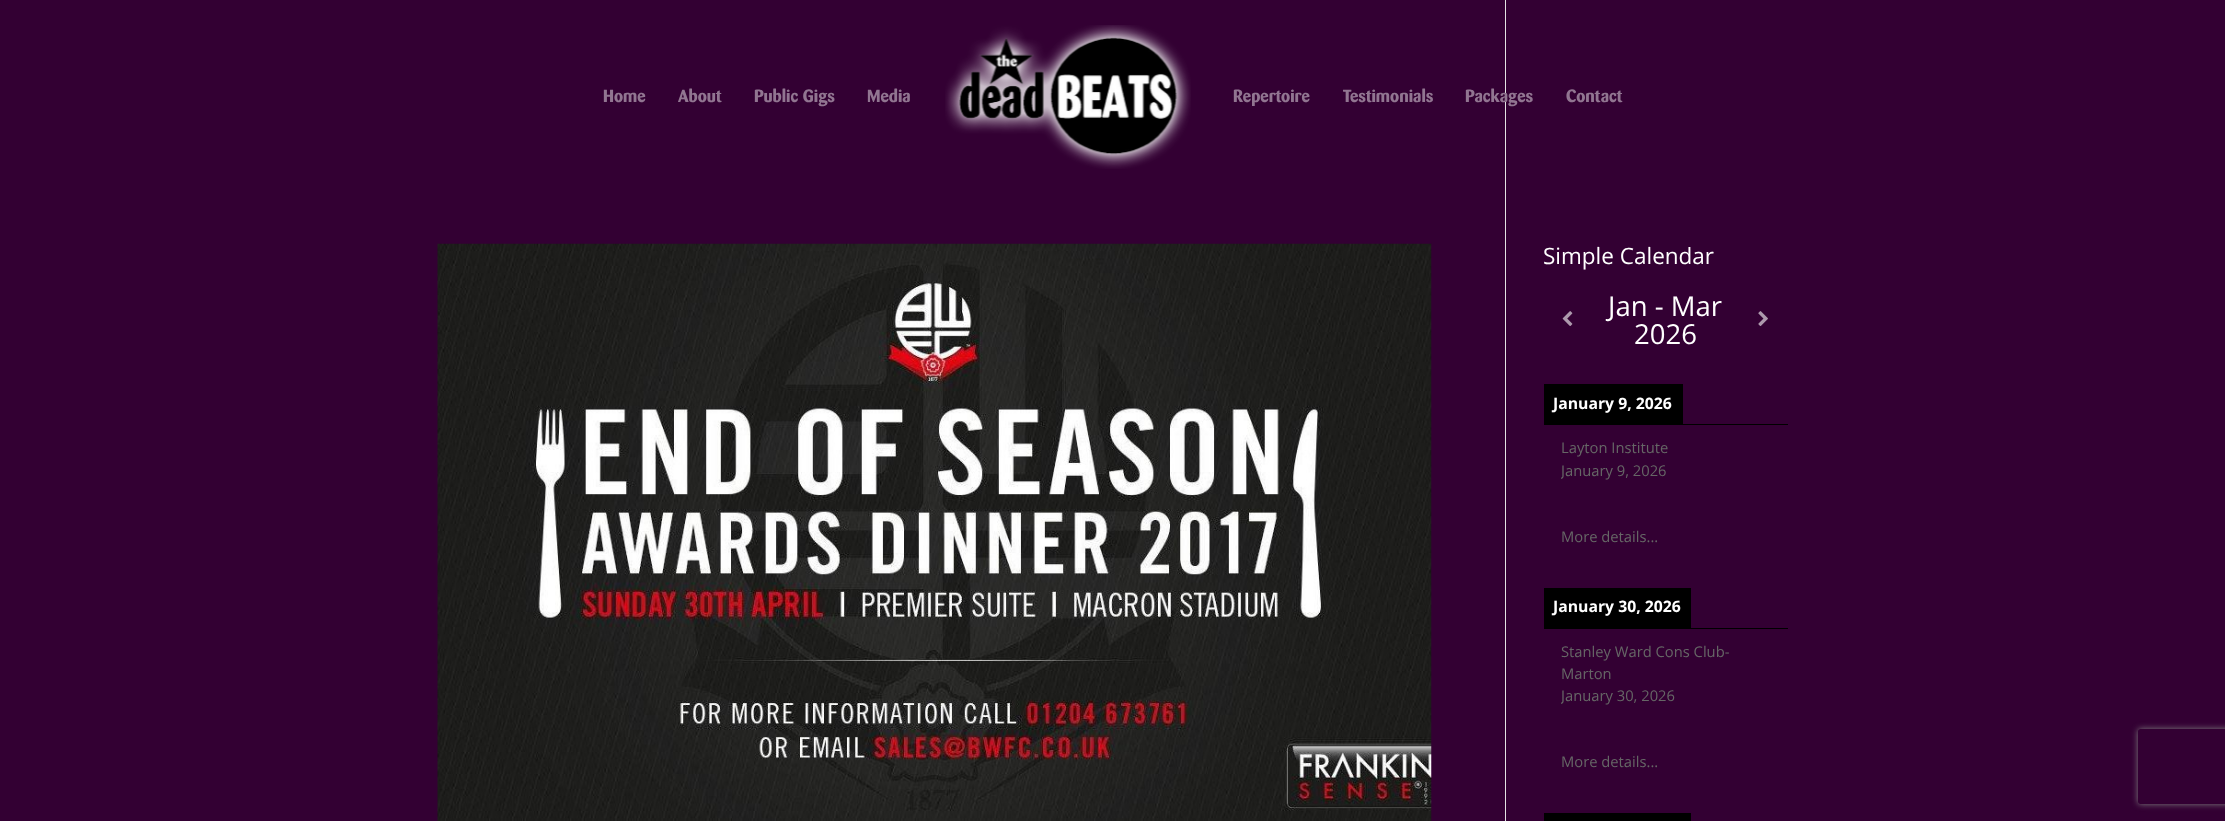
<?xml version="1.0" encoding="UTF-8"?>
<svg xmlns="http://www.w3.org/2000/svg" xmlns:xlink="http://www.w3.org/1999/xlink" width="2225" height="821">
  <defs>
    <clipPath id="clip1"><path d="M 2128 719 h 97 v 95 h -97 z m 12.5 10 h 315 c 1.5 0 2.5 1 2.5 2.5 v 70 c 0 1.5 -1 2.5 -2.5 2.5 h -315 c -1.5 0 -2.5 -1 -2.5 -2.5 v -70 c 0 -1.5 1 -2.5 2.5 -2.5 z" clip-rule="evenodd" /></clipPath>
    <clipPath id="clip2"><rect x="1561" y="438" width="209" height="125" /></clipPath>
    <clipPath id="clip3"><rect x="1561" y="641" width="209" height="147" /></clipPath>
  </defs>
  <rect width="100%" height="100%" fill="#330033" />
  <image x="945" y="25" width="246" height="144" xlink:href="image1.png" />
  <rect x="1505" width="1" height="821" fill="#e2e2e2" />
  <image x="437" y="243" width="995" height="578" xlink:href="image2.png" />
  <image x="1562" y="311" width="11" height="15" xlink:href="image3.png" />
  <image x="1758" y="311" width="10" height="15" xlink:href="image4.png" />
  <rect x="1544" y="424" width="244" height="1" fill="#000000" />
  <rect x="1544" y="384" width="139" height="40" fill="#000000" />
  <rect x="1544" y="628" width="244" height="1" fill="#000000" />
  <rect x="1544" y="588" width="147" height="40" fill="#000000" />
  <rect x="1544" y="813" width="147" height="8" fill="#000000" />
  <g clip-path="url(#clip1)">
    <rect x="2138" y="729" width="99" height="75" rx="2.5" fill="#808080" filter="blur(3px)" />
  </g>
  <text x="603" y="102" style="font-family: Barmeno; font-size: 17.5px; font-weight: bold; fill: #917591">Home</text>
  <text x="678" y="102" style="font-family: Barmeno; font-size: 17.5px; font-weight: bold; fill: #917591">About</text>
  <text x="754" y="102" style="font-family: Barmeno; font-size: 17.5px; font-weight: bold; fill: #917591">Public Gigs</text>
  <text x="867" y="102" style="font-family: Barmeno; font-size: 17.5px; font-weight: bold; fill: #917591">Media</text>
  <text x="1233" y="102" style="font-family: Barmeno; font-size: 17.5px; font-weight: bold; fill: #917591">Repertoire</text>
  <text x="1343" y="102" style="font-family: Barmeno; font-size: 17.5px; font-weight: bold; fill: #917591">Testimonials</text>
  <text x="1465" y="102" style="font-family: Barmeno; font-size: 17.5px; font-weight: bold; fill: #917591">Packages</text>
  <text x="1566" y="102" style="font-family: Barmeno; font-size: 17.5px; font-weight: bold; fill: #917591">Contact</text>
  <text x="1543" y="264" style="font-family: Open Sans; font-size: 22.5px; fill: #ffffff">Simple Calendar</text>
  <text x="1608" y="316" style="font-family: Open Sans; font-size: 27.5px; fill: #ffffff">Jan - Mar</text>
  <text x="1634" y="344" style="font-family: Open Sans; font-size: 27.5px; fill: #ffffff">2026</text>
  <text x="1553" y="409" style="font-family: Open Sans; font-size: 15.75px; font-weight: bold; fill: #ffffff">January 9, 2026</text>
  <text x="1561" y="453" style="font-family: Open Sans; font-size: 14.75px; fill: #666666">Layton Institute</text>
  <g clip-path="url(#clip2)">
    <text x="1561" y="476" style="font-family: Open Sans; font-size: 14.75px; fill: #666666">January 9, 2026</text>
  </g>
  <text x="1561" y="542" style="font-family: Open Sans; font-size: 14.75px; fill: #666666">More details...</text>
  <text x="1553" y="612" style="font-family: Open Sans; font-size: 15.75px; font-weight: bold; fill: #ffffff">January 30, 2026</text>
  <text x="1561" y="657" style="font-family: Open Sans; font-size: 14.75px; fill: #666666">Stanley Ward Cons Club-</text>
  <text x="1561" y="679" style="font-family: Open Sans; font-size: 14.75px; fill: #666666">Marton</text>
  <g clip-path="url(#clip3)">
    <text x="1561" y="701" style="font-family: Open Sans; font-size: 14.75px; fill: #666666">January 30, 2026</text>
  </g>
  <text x="1561" y="767" style="font-family: Open Sans; font-size: 14.75px; fill: #666666">More details...</text>
</svg>
